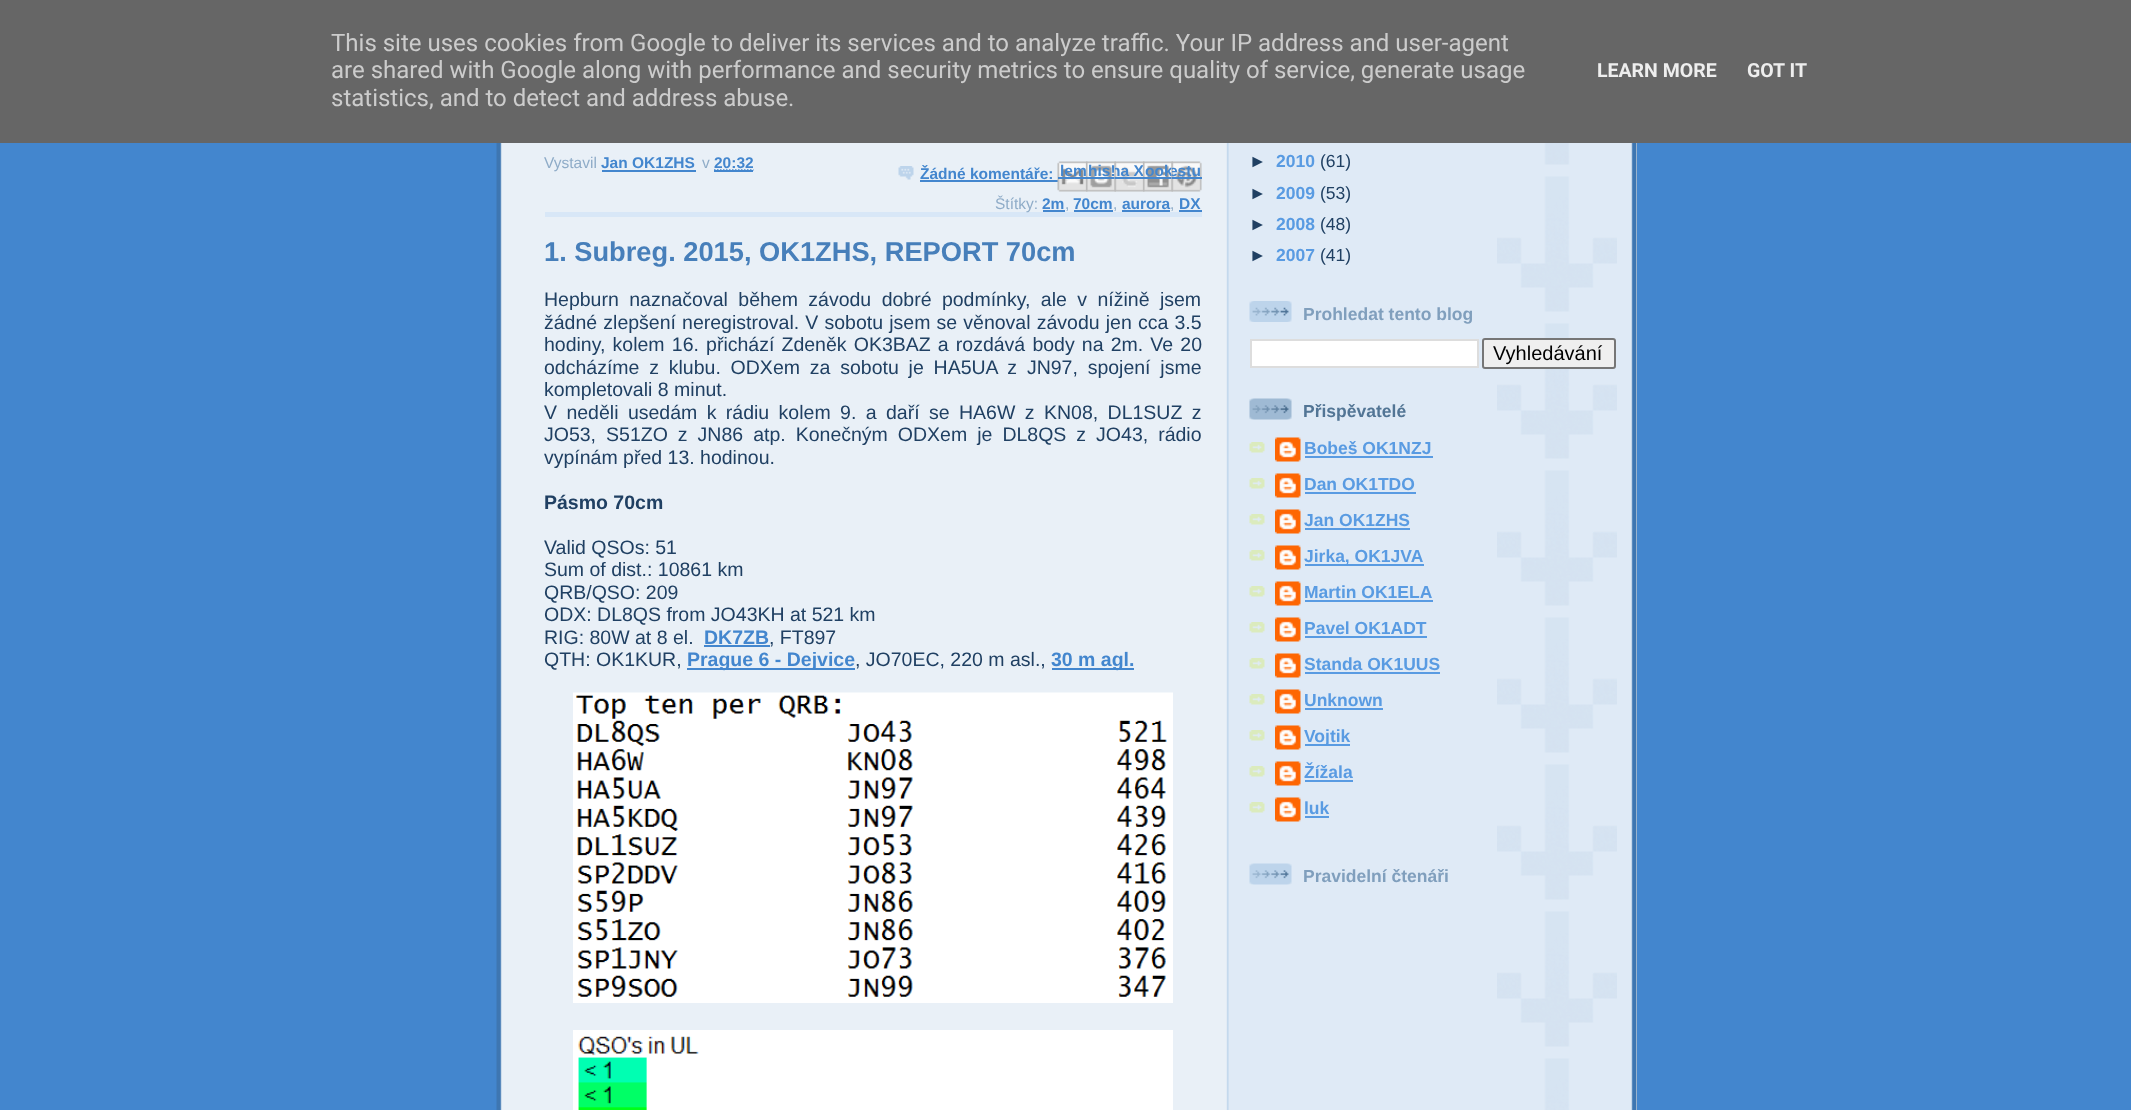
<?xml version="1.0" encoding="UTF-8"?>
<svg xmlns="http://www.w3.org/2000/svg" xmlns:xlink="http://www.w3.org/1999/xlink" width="2131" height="1110">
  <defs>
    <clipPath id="clip1"><rect x="1115" y="162" width="30" height="30" /></clipPath>
    <clipPath id="clip2"><rect x="1172" y="162" width="30" height="30" /></clipPath>
  </defs>
  <rect width="100%" height="100%" fill="#4386ce" />
  <rect width="2131" height="143" fill="#666666" />
  <rect x="1636" y="143" width="1" height="967" fill="#f7f0e9" />
  <image x="496" y="143" width="1141" height="967" xlink:href="image1.png" />
  <rect x="545" y="212" width="657" height="5" fill="#d8e7f7" />
  <rect x="602" y="170" width="94" height="2" fill="#4386ce" />
  <path d="M 714 170 h 39.5" fill="none" stroke="#4386ce" stroke-width="1.5" stroke-dasharray="1.5 1.5" />
  <rect x="714" y="170" width="39" height="2" fill="#4386ce" />
  <image x="898" y="166" width="16" height="14" xlink:href="image2.png" />
  <rect x="920" y="180" width="139" height="2" fill="#4386ce" />
  <image x="1057" y="161" width="31" height="31" xlink:href="image3.png" />
  <rect x="1058" y="177" width="30" height="2" fill="#4386ce" />
  <image x="1086" y="161" width="30" height="31" xlink:href="image4.png" />
  <rect x="1086" y="177" width="30" height="2" fill="#4386ce" />
  <image x="1114" y="161" width="31" height="31" xlink:href="image5.png" />
  <rect x="1115" y="177" width="30" height="2" fill="#4386ce" />
  <rect x="1043" y="210" width="22" height="2" fill="#4386ce" />
  <rect x="1074" y="210" width="39" height="2" fill="#4386ce" />
  <rect x="1122" y="210" width="48" height="2" fill="#4386ce" />
  <rect x="1179" y="210" width="23" height="2" fill="#4386ce" />
  <rect x="704" y="645" width="66" height="2" fill="#4386ce" />
  <rect x="687" y="668" width="168" height="2" fill="#4386ce" />
  <rect x="1052" y="668" width="82" height="2" fill="#4386ce" />
  <image x="573" y="692" width="600" height="311" xlink:href="image8.png" />
  <image x="573" y="1030" width="600" height="80" xlink:href="image9.png" />
  <image x="1497" y="143" width="120" height="967" xlink:href="image10.png" />
  <image x="1249" y="301" width="43" height="21" xlink:href="image11.png" />
  <rect x="1251" y="340" width="227" height="27" fill="#ffffff" stroke="#dddddd" stroke-width="2" />
  <rect x="1483" y="339" width="132" height="29" rx="2" fill="#efefef" stroke="#767676" stroke-width="2" />
  <image x="1249" y="398" width="43" height="22" xlink:href="image12.png" />
  <image x="1249" y="442" width="16" height="11" xlink:href="image13.png" />
  <image x="1275" y="437" width="26" height="25" xlink:href="image14.png" />
  <rect x="1305" y="456" width="128" height="2" fill="#599be2" />
  <image x="1249" y="478" width="16" height="11" xlink:href="image13.png" />
  <image x="1275" y="473" width="26" height="25" xlink:href="image14.png" />
  <rect x="1305" y="492" width="111" height="2" fill="#599be2" />
  <image x="1249" y="514" width="16" height="11" xlink:href="image13.png" />
  <image x="1275" y="509" width="26" height="25" xlink:href="image14.png" />
  <rect x="1305" y="528" width="105" height="2" fill="#599be2" />
  <image x="1249" y="550" width="16" height="11" xlink:href="image13.png" />
  <image x="1275" y="545" width="26" height="25" xlink:href="image14.png" />
  <rect x="1305" y="564" width="119" height="2" fill="#599be2" />
  <image x="1249" y="586" width="16" height="11" xlink:href="image13.png" />
  <image x="1275" y="581" width="26" height="25" xlink:href="image14.png" />
  <rect x="1305" y="600" width="128" height="2" fill="#599be2" />
  <image x="1249" y="622" width="16" height="11" xlink:href="image13.png" />
  <image x="1275" y="617" width="26" height="25" xlink:href="image14.png" />
  <rect x="1305" y="636" width="122" height="2" fill="#599be2" />
  <image x="1249" y="658" width="16" height="11" xlink:href="image13.png" />
  <image x="1275" y="653" width="26" height="25" xlink:href="image14.png" />
  <rect x="1305" y="672" width="135" height="2" fill="#599be2" />
  <image x="1249" y="694" width="16" height="11" xlink:href="image13.png" />
  <image x="1275" y="689" width="26" height="25" xlink:href="image14.png" />
  <rect x="1305" y="708" width="78" height="2" fill="#599be2" />
  <image x="1249" y="730" width="16" height="11" xlink:href="image13.png" />
  <image x="1275" y="725" width="26" height="25" xlink:href="image14.png" />
  <rect x="1305" y="744" width="45" height="2" fill="#599be2" />
  <image x="1249" y="766" width="16" height="11" xlink:href="image13.png" />
  <image x="1275" y="761" width="26" height="25" xlink:href="image14.png" />
  <rect x="1305" y="780" width="48" height="2" fill="#599be2" />
  <image x="1249" y="802" width="16" height="11" xlink:href="image13.png" />
  <image x="1275" y="797" width="26" height="25" xlink:href="image14.png" />
  <rect x="1305" y="816" width="24" height="2" fill="#599be2" />
  <image x="1249" y="863" width="43" height="22" xlink:href="image15.png" />
  <text x="331" y="51" style="font-family: Roboto; font-size: 24px; fill: #cccccc">This site uses cookies from Google to deliver its services and to analyze traffic. Your IP address and user-agent</text>
  <text x="331" y="78" style="font-family: Roboto; font-size: 24px; fill: #cccccc">are shared with Google along with performance and security metrics to ensure quality of service, generate usage</text>
  <text x="331" y="106" style="font-family: Roboto; font-size: 24px; fill: #cccccc">statistics, and to detect and address abuse.</text>
  <text x="1597" y="77" style="font-family: Roboto; font-size: 19.5px; font-weight: bold; fill: #eeeeee">LEARN MORE</text>
  <text x="1747" y="77" style="font-family: Roboto; font-size: 19.5px; font-weight: bold; fill: #eeeeee">GOT IT</text>
  <text x="544" y="168" style="font-family: Liberation Sans; font-size: 15.5px; fill: #8facc8">Vystavil</text>
  <text x="601" y="168" style="font-family: Liberation Sans; font-size: 15.5px; font-weight: bold; fill: #4386ce">Jan OK1ZHS</text>
  <text x="702" y="168" style="font-family: Liberation Sans; font-size: 15.5px; fill: #8facc8">v</text>
  <text x="714" y="168" style="font-family: Liberation Sans; font-size: 15.5px; font-weight: bold; fill: #4386ce">20:32</text>
  <text x="920" y="179" style="font-family: Liberation Sans; font-size: 15.5px; font-weight: bold; fill: #4386ce">Žádné komentáře:</text>
  <text x="1060" y="176" style="font-family: Liberation Sans; font-size: 15.5px; font-weight: bold; fill: #4386ce">lem</text>
  <text x="1088" y="176" style="font-family: Liberation Sans; font-size: 15.5px; font-weight: bold; fill: #4386ce">his!</text>
  <g clip-path="url(#clip1)">
    <text x="1111" y="176" style="font-family: Liberation Sans; font-size: 15.5px; font-weight: bold; fill: #4386ce">na X</text>
  </g>
  <image x="1143" y="161" width="30" height="31" xlink:href="image6.png" />
  <text x="1145" y="176" style="font-family: Liberation Sans; font-size: 15.5px; font-weight: bold; fill: #4386ce">ook</text>
  <rect x="1143" y="177" width="30" height="2" fill="#4386ce" />
  <image x="1171" y="161" width="31" height="31" xlink:href="image7.png" />
  <g clip-path="url(#clip2)">
    <text x="1169" y="176" style="font-family: Liberation Sans; font-size: 15.5px; font-weight: bold; fill: #4386ce">estu</text>
  </g>
  <rect x="1172" y="177" width="30" height="2" fill="#4386ce" />
  <text x="995" y="209" style="font-family: Liberation Sans; font-size: 15.5px; fill: #8facc8">Štítky:</text>
  <text x="1042" y="209" style="font-family: Liberation Sans; font-size: 15.5px; font-weight: bold; fill: #4386ce">2m</text>
  <text x="1065" y="209" style="font-family: Liberation Sans; font-size: 15.5px; fill: #8facc8">,</text>
  <text x="1073" y="209" style="font-family: Liberation Sans; font-size: 15.5px; font-weight: bold; fill: #4386ce">70cm</text>
  <text x="1113" y="209" style="font-family: Liberation Sans; font-size: 15.5px; fill: #8facc8">,</text>
  <text x="1122" y="209" style="font-family: Liberation Sans; font-size: 15.5px; font-weight: bold; fill: #4386ce">aurora</text>
  <text x="1170" y="209" style="font-family: Liberation Sans; font-size: 15.5px; fill: #8facc8">,</text>
  <text x="1179" y="209" style="font-family: Liberation Sans; font-size: 15.5px; font-weight: bold; fill: #4386ce">DX</text>
  <text x="544" y="261" style="font-family: Liberation Sans; font-size: 27.25px; font-weight: bold; fill: #477fba">1. Subreg. 2015, OK1ZHS, REPORT 70cm</text>
  <text x="544" y="306" word-spacing="5" style="font-family: Liberation Sans; font-size: 19.5px; fill: #204063">Hepburn naznačoval během závodu dobré podmínky, ale v nížině jsem</text>
  <text x="544" y="329" word-spacing="0.75" style="font-family: Liberation Sans; font-size: 19.5px; fill: #204063">žádné zlepšení neregistroval. V sobotu jsem se věnoval závodu jen cca 3.5</text>
  <text x="544" y="351" word-spacing="1.75" style="font-family: Liberation Sans; font-size: 19.5px; fill: #204063">hodiny, kolem 16. přichází Zdeněk OK3BAZ a rozdává body na 2m. Ve 20</text>
  <text x="544" y="374" word-spacing="4.4" style="font-family: Liberation Sans; font-size: 19.5px; fill: #204063">odcházíme z klubu. ODXem za sobotu je HA5UA z JN97, spojení jsme</text>
  <text x="544" y="396" style="font-family: Liberation Sans; font-size: 19.5px; fill: #204063">kompletovali 8 minut.</text>
  <text x="544" y="419" word-spacing="4" style="font-family: Liberation Sans; font-size: 19.5px; fill: #204063">V neděli usedám k rádiu kolem 9. a daří se HA6W z KN08, DL1SUZ z</text>
  <text x="544" y="441" word-spacing="4.6" style="font-family: Liberation Sans; font-size: 19.5px; fill: #204063">JO53, S51ZO z JN86 atp. Konečným ODXem je DL8QS z JO43, rádio</text>
  <text x="544" y="464" style="font-family: Liberation Sans; font-size: 19.5px; fill: #204063">vypínám před 13. hodinou.</text>
  <text x="544" y="509" style="font-family: Liberation Sans; font-size: 19.5px; font-weight: bold; fill: #204063">Pásmo 70cm</text>
  <text x="544" y="554" style="font-family: Liberation Sans; font-size: 19.5px; fill: #204063">Valid QSOs: 51</text>
  <text x="544" y="576" style="font-family: Liberation Sans; font-size: 19.5px; fill: #204063">Sum of dist.: 10861 km</text>
  <text x="544" y="599" style="font-family: Liberation Sans; font-size: 19.5px; fill: #204063">QRB/QSO: 209</text>
  <text x="544" y="621" style="font-family: Liberation Sans; font-size: 19.5px; fill: #204063">ODX: DL8QS from JO43KH at 521 km</text>
  <text x="544" y="644" style="font-family: Liberation Sans; font-size: 19.5px; fill: #204063">RIG: 80W at 8 el.</text>
  <text x="704" y="644" style="font-family: Liberation Sans; font-size: 19.5px; font-weight: bold; fill: #4386ce">DK7ZB</text>
  <text x="769" y="644" style="font-family: Liberation Sans; font-size: 19.5px; fill: #204063">, FT897</text>
  <text x="544" y="666" style="font-family: Liberation Sans; font-size: 19.5px; fill: #204063">QTH: OK1KUR,</text>
  <text x="687" y="666" style="font-family: Liberation Sans; font-size: 19.5px; font-weight: bold; fill: #4386ce">Prague 6 - Dejvice</text>
  <text x="855" y="666" style="font-family: Liberation Sans; font-size: 19.5px; fill: #204063">, JO70EC, 220 m asl.,</text>
  <text x="1051" y="666" style="font-family: Liberation Sans; font-size: 19.5px; font-weight: bold; fill: #4386ce">30 m agl.</text>
  <text x="1249" y="167" style="font-family: Liberation Sans; font-size: 17.5px; font-weight: bold; fill: #204063">►</text>
  <text x="1276" y="167" style="font-family: Liberation Sans; font-size: 17.5px; font-weight: bold; fill: #599be2">2010</text>
  <text x="1320" y="167" style="font-family: Liberation Sans; font-size: 17.5px; fill: #204063">(61)</text>
  <text x="1249" y="199" style="font-family: Liberation Sans; font-size: 17.5px; font-weight: bold; fill: #204063">►</text>
  <text x="1276" y="199" style="font-family: Liberation Sans; font-size: 17.5px; font-weight: bold; fill: #599be2">2009</text>
  <text x="1320" y="199" style="font-family: Liberation Sans; font-size: 17.5px; fill: #204063">(53)</text>
  <text x="1249" y="230" style="font-family: Liberation Sans; font-size: 17.5px; font-weight: bold; fill: #204063">►</text>
  <text x="1276" y="230" style="font-family: Liberation Sans; font-size: 17.5px; font-weight: bold; fill: #599be2">2008</text>
  <text x="1320" y="230" style="font-family: Liberation Sans; font-size: 17.5px; fill: #204063">(48)</text>
  <text x="1249" y="261" style="font-family: Liberation Sans; font-size: 17.5px; font-weight: bold; fill: #204063">►</text>
  <text x="1276" y="261" style="font-family: Liberation Sans; font-size: 17.5px; font-weight: bold; fill: #599be2">2007</text>
  <text x="1320" y="261" style="font-family: Liberation Sans; font-size: 17.5px; fill: #204063">(41)</text>
  <text x="1303" y="320" style="font-family: Liberation Sans; font-size: 17.5px; font-weight: bold; fill: #809fbd">Prohledat tento blog</text>
  <text x="1493" y="360" style="font-family: Liberation Sans; font-size: 20px; fill: #000000">Vyhledávání</text>
  <text x="1303" y="417" style="font-family: Liberation Sans; font-size: 17.5px; font-weight: bold; fill: #527595">Přispěvatelé</text>
  <text x="1304" y="454" style="font-family: Liberation Sans; font-size: 17.5px; font-weight: bold; fill: #599be2">Bobeš OK1NZJ</text>
  <text x="1304" y="490" style="font-family: Liberation Sans; font-size: 17.5px; font-weight: bold; fill: #599be2">Dan OK1TDO</text>
  <text x="1304" y="526" style="font-family: Liberation Sans; font-size: 17.5px; font-weight: bold; fill: #599be2">Jan OK1ZHS</text>
  <text x="1304" y="562" style="font-family: Liberation Sans; font-size: 17.5px; font-weight: bold; fill: #599be2">Jirka, OK1JVA</text>
  <text x="1304" y="598" style="font-family: Liberation Sans; font-size: 17.5px; font-weight: bold; fill: #599be2">Martin OK1ELA</text>
  <text x="1304" y="634" style="font-family: Liberation Sans; font-size: 17.5px; font-weight: bold; fill: #599be2">Pavel OK1ADT</text>
  <text x="1304" y="670" style="font-family: Liberation Sans; font-size: 17.5px; font-weight: bold; fill: #599be2">Standa OK1UUS</text>
  <text x="1304" y="706" style="font-family: Liberation Sans; font-size: 17.5px; font-weight: bold; fill: #599be2">Unknown</text>
  <text x="1304" y="742" style="font-family: Liberation Sans; font-size: 17.5px; font-weight: bold; fill: #599be2">Vojtik</text>
  <text x="1304" y="778" style="font-family: Liberation Sans; font-size: 17.5px; font-weight: bold; fill: #599be2">Žížala</text>
  <text x="1304" y="814" style="font-family: Liberation Sans; font-size: 17.5px; font-weight: bold; fill: #599be2">luk</text>
  <text x="1303" y="882" style="font-family: Liberation Sans; font-size: 17.5px; font-weight: bold; fill: #809fbd">Pravidelní čtenáři</text>
</svg>
